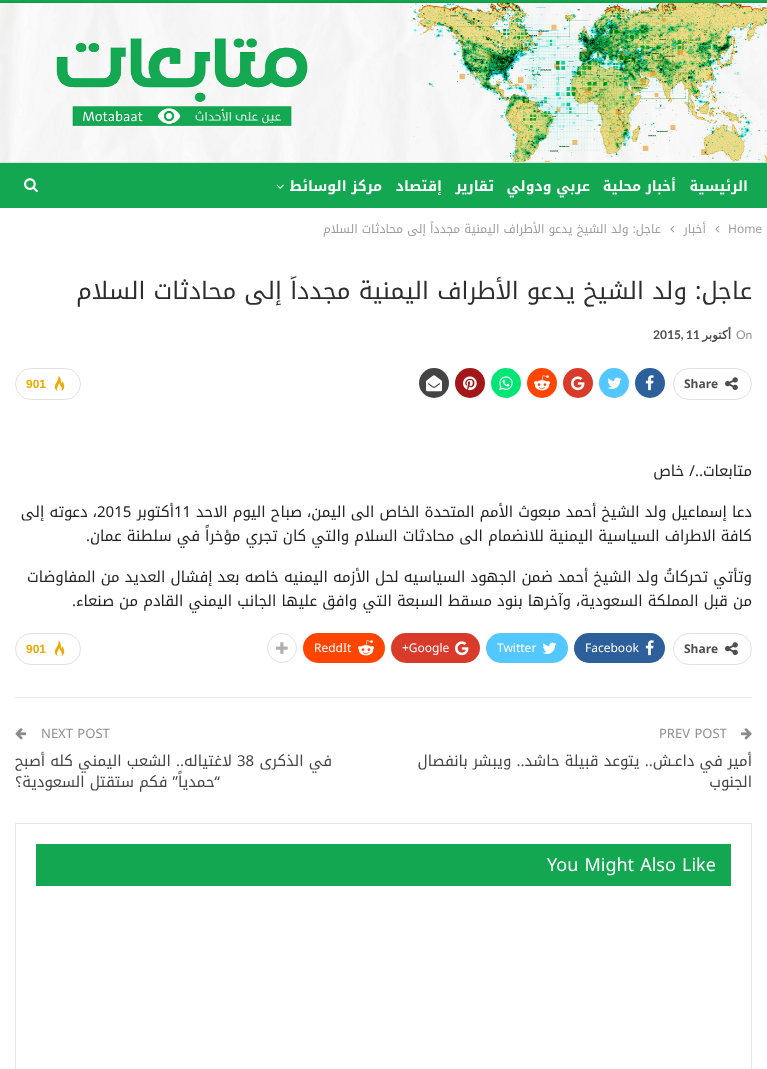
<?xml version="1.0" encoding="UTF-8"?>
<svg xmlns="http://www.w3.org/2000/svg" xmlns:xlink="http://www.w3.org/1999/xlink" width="767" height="1069">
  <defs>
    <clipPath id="clip1"><rect x="15" y="276" width="737" height="72" /></clipPath>
  </defs>
  <rect width="100%" height="100%" fill="#12a750" />
  <rect y="3" width="767" height="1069" fill="#000000" fill-opacity="0.27" filter="blur(1px)" />
  <rect y="208" width="767" height="861" fill="#ffffff" />
  <image x="0" y="3" width="767" height="159" xlink:href="image1.png" />
  <rect y="163" width="767" height="45" fill="#12a750" />
  <rect y="162" width="767" height="1" fill="#dedede" />
  <image x="276" y="184" width="8" height="5" xlink:href="image2.png" />
  <image x="24" y="178" width="14" height="15" xlink:href="image3.png" />
  <image x="715" y="225" width="5" height="8" xlink:href="image4.png" />
  <image x="670" y="225" width="5" height="8" xlink:href="image4.png" />
  <rect x="673.5" y="368.5" width="78" height="31" rx="15.5" fill="none" stroke="#e2e2e2" />
  <image x="725" y="377" width="13" height="14" xlink:href="image5.png" />
  <circle cx="650" cy="383" r="15" fill="#2d5f9a" />
  <image x="645" y="375" width="9" height="16" xlink:href="image6.png" />
  <circle cx="614" cy="383" r="15" fill="#53c7ff" />
  <image x="607" y="377" width="15" height="12" xlink:href="image7.png" />
  <circle cx="578" cy="383" r="15" fill="#d93b2b" />
  <image x="571" y="376" width="14" height="15" xlink:href="image8.png" />
  <circle cx="542" cy="383" r="15" fill="#ff4500" />
  <image x="534" y="375" width="16" height="16" xlink:href="image9.png" />
  <circle cx="506" cy="383" r="15" fill="#00e676" />
  <image x="499" y="376" width="14" height="15" xlink:href="image10.png" />
  <circle cx="470" cy="383" r="15" fill="#a41719" />
  <image x="463" y="376" width="14" height="15" xlink:href="image11.png" />
  <circle cx="434" cy="383" r="15" fill="#444444" />
  <image x="426" y="375" width="16" height="17" xlink:href="image12.png" />
  <rect x="15.5" y="368.5" width="65" height="31" rx="15.5" fill="none" stroke="#e2e2e2" />
  <image x="54" y="376" width="11" height="15" xlink:href="image13.png" />
  <rect x="673.5" y="633.5" width="78" height="31" rx="15.5" fill="none" stroke="#e2e2e2" />
  <image x="725" y="642" width="13" height="14" xlink:href="image5.png" />
  <rect x="574" y="633" width="91" height="30" rx="15" fill="#2d5f9a" />
  <image x="645" y="640" width="9" height="16" xlink:href="image6.png" />
  <rect x="486" y="633" width="82" height="30" rx="15" fill="#53c7ff" />
  <image x="542" y="642" width="15" height="12" xlink:href="image7.png" />
  <rect x="391" y="633" width="89" height="30" rx="15" fill="#d93b2b" />
  <image x="455" y="641" width="14" height="15" xlink:href="image8.png" />
  <rect x="303" y="633" width="82" height="30" rx="15" fill="#ff4500" />
  <image x="358" y="640" width="16" height="16" xlink:href="image9.png" />
  <circle cx="282" cy="648" r="14.5" fill="none" stroke="#e2e2e2" />
  <image x="276" y="642" width="12" height="12" xlink:href="image14.png" />
  <rect x="15.5" y="633.5" width="65" height="31" rx="15.5" fill="none" stroke="#e2e2e2" />
  <image x="54" y="641" width="11" height="15" xlink:href="image13.png" />
  <rect x="15" y="697" width="737" height="1" fill="#e8e8e8" />
  <image x="741" y="728" width="11" height="12" xlink:href="image15.png" />
  <image x="15" y="728" width="12" height="12" xlink:href="image16.png" />
  <rect x="15.5" y="823.5" width="736" height="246" fill="none" stroke="#e8e8e8" />
  <rect x="36" y="844" width="695" height="42" fill="#12a750" />
  <text x="748" y="191" style="font-family: Noto Kufi Arabic; font-size: 14px; font-weight: bold; direction: rtl; fill: #ffffff">الرئيسية</text>
  <text x="676" y="191" style="font-family: Noto Kufi Arabic; font-size: 14px; font-weight: bold; direction: rtl; fill: #ffffff">أخبار محلية</text>
  <text x="590" y="191" style="font-family: Noto Kufi Arabic; font-size: 14px; font-weight: bold; direction: rtl; fill: #ffffff">عربي ودولي</text>
  <text x="494" y="191" style="font-family: Noto Kufi Arabic; font-size: 14px; font-weight: bold; direction: rtl; fill: #ffffff">تقارير</text>
  <text x="442" y="191" style="font-family: Noto Kufi Arabic; font-size: 14px; font-weight: bold; direction: rtl; fill: #ffffff">إقتصاد</text>
  <text x="382" y="191" style="font-family: Noto Kufi Arabic; font-size: 14px; font-weight: bold; direction: rtl; fill: #ffffff">مركز الوسائط</text>
  <text x="728" y="233" style="font-family: Noto Kufi Arabic; font-size: 12px; fill: #9e9e9e">Home</text>
  <text x="706" y="233" style="font-family: Noto Kufi Arabic; font-size: 12px; direction: rtl; fill: #9e9e9e">أخبار</text>
  <text x="661" y="233" style="font-family: Noto Kufi Arabic; font-size: 12px; direction: rtl; fill: #9e9e9e">عاجل: ولد الشيخ يدعو الأطراف اليمنية مجدداً إلى محادثات السلام</text>
  <g clip-path="url(#clip1)">
    <text x="752" y="299" style="font-family: Noto Kufi Arabic; font-size: 24px; direction: rtl; fill: #2d2d2d">عاجل: ولد الشيخ يدعو الأطراف اليمنية مجدداً إلى محادثات السلام</text>
  </g>
  <text x="736" y="339" style="font-family: Lato; font-size: 12px; fill: #8f8f8f">On</text>
  <text x="731" y="339" style="font-family: DejaVu Sans; font-size: 12px; font-weight: bold; direction: rtl; fill: #4d4d4d">أكتوبر</text>
  <text x="653" y="339" style="font-family: Lato; font-size: 12px; font-weight: bold; fill: #4d4d4d">2015, 11</text>
  <text x="684" y="388" style="font-family: Noto Kufi Arabic; font-size: 12px; font-weight: bold; fill: #4d4d4d">Share</text>
  <text x="26" y="388" style="font-family: Liberation Sans; font-size: 12px; font-weight: bold; fill: #edaa02">901</text>
  <text x="752" y="476" style="font-family: Noto Kufi Arabic; font-size: 15px; direction: rtl; fill: #222222">متابعات../ خاص</text>
  <text x="752" y="517" style="font-family: Noto Kufi Arabic; font-size: 15px; direction: rtl; fill: #222222">دعا إسماعيل ولد الشيخ أحمد مبعوث الأمم المتحدة الخاص الى اليمن، صباح اليوم الاحد</text>
  <text x="174" y="517" style="font-family: Noto Kufi Arabic; font-size: 15px; fill: #222222">11</text>
  <text x="174" y="517" style="font-family: Noto Kufi Arabic; font-size: 15px; direction: rtl; fill: #222222">أكتوبر</text>
  <text x="97" y="517" style="font-family: Noto Kufi Arabic; font-size: 15px; fill: #222222">2015</text>
  <text x="97" y="517" style="font-family: Noto Kufi Arabic; font-size: 15px; direction: rtl; fill: #222222">، دعوته إلى</text>
  <text x="752" y="541" style="font-family: Noto Kufi Arabic; font-size: 15px; direction: rtl; fill: #222222">كافة الاطراف السياسية اليمنية للانضمام الى محادثات السلام والتي كان تجري مؤخراً في سلطنة عمان.</text>
  <text x="752" y="582" style="font-family: Noto Kufi Arabic; font-size: 15px; direction: rtl; fill: #222222">وتأتي تحركاتُ ولد الشيخ أحمد ضمن الجهود السياسيه لحل الأزمه اليمنيه خاصه بعد إفشال العديد من المفاوضات</text>
  <text x="752" y="606" style="font-family: Noto Kufi Arabic; font-size: 15px; direction: rtl; fill: #222222">من قبل المملكة السعودية، وآخرها بنود مسقط السبعة التي وافق عليها الجانب اليمني القادم من صنعاء.</text>
  <text x="684" y="653" style="font-family: Noto Kufi Arabic; font-size: 12px; font-weight: bold; fill: #4d4d4d">Share</text>
  <text x="585" y="652" style="font-family: Noto Kufi Arabic; font-size: 12px; fill: #ffffff">Facebook</text>
  <text x="497" y="652" style="font-family: Noto Kufi Arabic; font-size: 12px; fill: #ffffff">Twitter</text>
  <text x="402" y="652" style="font-family: Noto Kufi Arabic; font-size: 12px; fill: #ffffff">+Google</text>
  <text x="314" y="652" style="font-family: Noto Kufi Arabic; font-size: 12px; fill: #ffffff">ReddIt</text>
  <text x="26" y="653" style="font-family: Liberation Sans; font-size: 12px; font-weight: bold; fill: #edaa02">901</text>
  <text x="659" y="738" style="font-family: Noto Kufi Arabic; font-size: 13px; fill: #8f8f8f">PREV POST</text>
  <text x="752" y="766" style="font-family: Noto Kufi Arabic; font-size: 15px; direction: rtl; fill: #444444">أمير في داعـش.. يتوعد قبيلة حاشد.. ويبشر بانفصال</text>
  <text x="752" y="787" style="font-family: Noto Kufi Arabic; font-size: 15px; direction: rtl; fill: #444444">الجنوب</text>
  <text x="41" y="738" style="font-family: Noto Kufi Arabic; font-size: 13px; fill: #8f8f8f">NEXT POST</text>
  <text x="332" y="766" style="font-family: Noto Kufi Arabic; font-size: 15px; direction: rtl; fill: #444444">في الذكرى</text>
  <text x="237" y="766" style="font-family: Noto Kufi Arabic; font-size: 15px; fill: #444444">38</text>
  <text x="232" y="766" style="font-family: Noto Kufi Arabic; font-size: 15px; direction: rtl; fill: #444444">لاغتياله.. الشعب اليمني كله أصبح</text>
  <text x="220" y="787" style="font-family: Noto Kufi Arabic; font-size: 15px; direction: rtl; fill: #444444">“حمدياً” فكم ستقتل السعودية؟</text>
  <text x="547" y="871" style="font-family: Noto Kufi Arabic; font-size: 18px; fill: #ffffff">You Might Also Like</text>
</svg>
